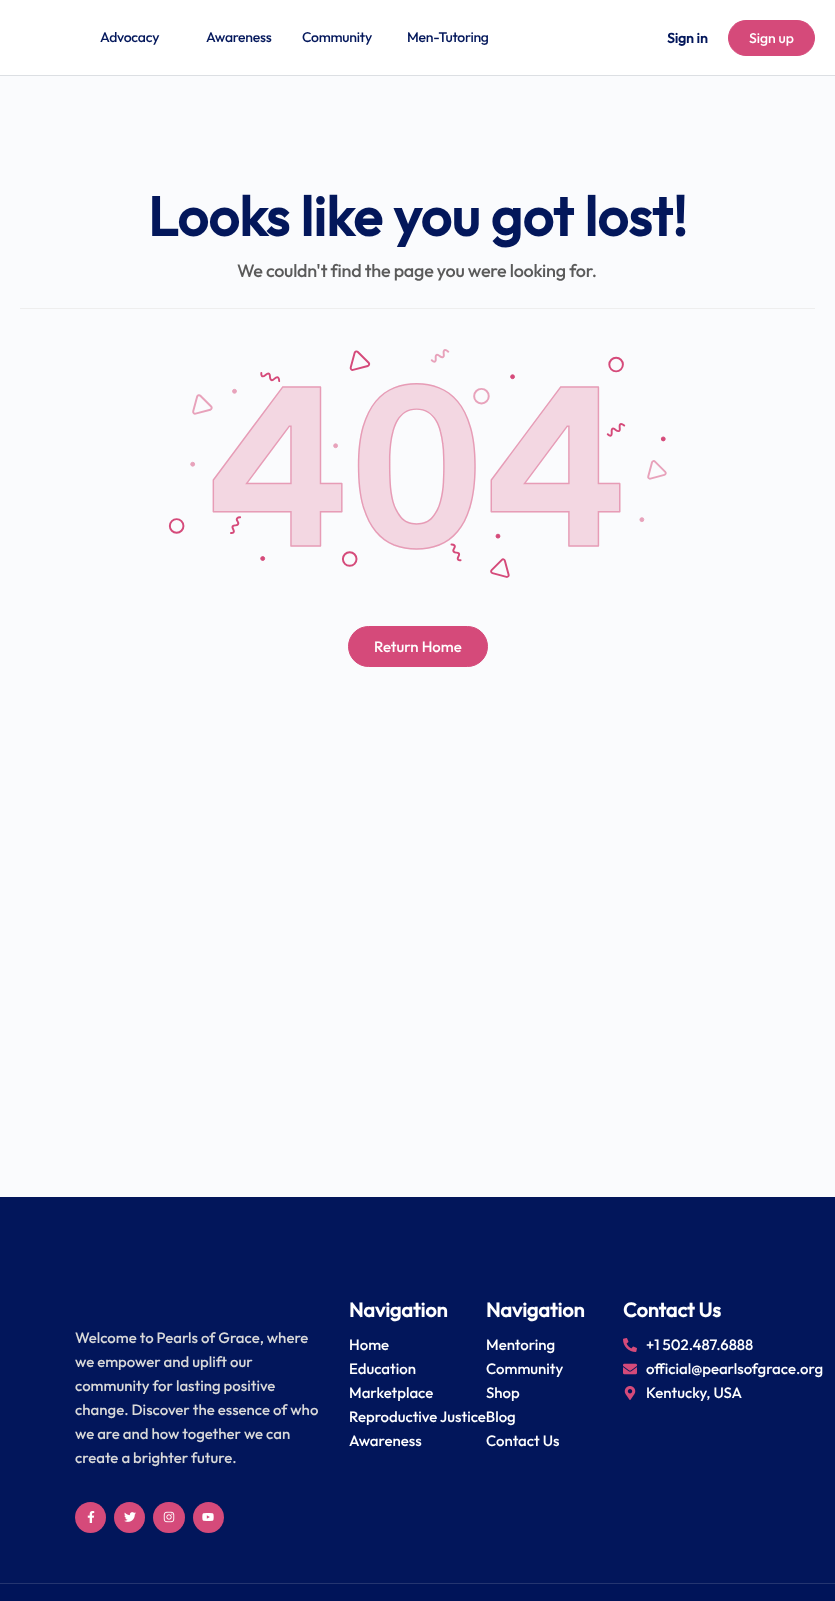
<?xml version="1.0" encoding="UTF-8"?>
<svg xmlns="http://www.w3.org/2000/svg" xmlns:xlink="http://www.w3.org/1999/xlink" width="835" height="1601">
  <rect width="100%" height="100%" fill="#fafbfd" />
  <rect width="835" height="75" fill="#ffffff" />
  <rect y="75" width="835" height="1" fill="#dcdfe3" />
  <rect x="728.5" y="20.5" width="86" height="35" rx="17.5" fill="#d54a7a" stroke="#d54a7a" />
  <rect x="20" y="308" width="795" height="1" fill="#eeeeee" />
  <image x="168" y="349" width="499" height="229" xlink:href="image1.png" />
  <rect x="348.5" y="626.5" width="139" height="40" rx="20" fill="#d54a7a" stroke="#d54a7a" />
  <rect y="1197" width="835" height="386" fill="#02165b" />
  <circle cx="90.5" cy="1517.5" r="15.5" fill="#d54a7a" />
  <image x="87" y="1511" width="8" height="12" xlink:href="image2.png" />
  <circle cx="129.5" cy="1517.5" r="15.5" fill="#d54a7a" />
  <image x="124" y="1512" width="12" height="10" xlink:href="image3.png" />
  <rect x="153" y="1502" width="32" height="31" rx="15.5" fill="#d54a7a" />
  <image x="163" y="1511" width="12" height="12" xlink:href="image4.png" />
  <circle cx="208.5" cy="1517.5" r="15.5" fill="#d54a7a" />
  <image x="202" y="1513" width="12" height="8" xlink:href="image5.png" />
  <image x="623" y="1338" width="14" height="14" xlink:href="image6.png" />
  <image x="623" y="1363" width="14" height="12" xlink:href="image7.png" />
  <image x="624" y="1386" width="12" height="14" xlink:href="image8.png" />
  <rect y="1584" width="835" height="17" fill="#001459" />
  <rect y="1583" width="835" height="1" fill="#243570" />
  <text x="100" y="42" style="font-family: Outfit; font-size: 14px; font-weight: 100; letter-spacing: -0.25px; fill: #03175b">Advocacy</text>
  <text x="206" y="42" style="font-family: Outfit; font-size: 14px; font-weight: 100; letter-spacing: -0.25px; fill: #03175b">Awareness</text>
  <text x="302" y="42" style="font-family: Outfit; font-size: 14px; font-weight: 100; letter-spacing: -0.25px; fill: #03175b">Community</text>
  <text x="407" y="42" style="font-family: Outfit; font-size: 14px; font-weight: 100; letter-spacing: -0.25px; fill: #03175b">Men-Tutoring</text>
  <text x="667" y="43" style="font-family: Outfit; font-size: 14px; font-weight: bold; fill: #03175b">Sign in</text>
  <text x="749" y="43" style="font-family: Outfit; font-size: 14px; font-weight: 100; fill: #ffffff">Sign up</text>
  <text x="148" y="236" style="font-family: Outfit; font-size: 55px; font-weight: bold; fill: #03175b">Looks like you got lost!</text>
  <text x="237" y="277" style="font-family: Outfit; font-size: 18px; font-weight: 100; letter-spacing: -0.25px; fill: #5a5a5a">We couldn't find the page you were looking for.</text>
  <text x="374" y="652" style="font-family: Outfit; font-size: 15px; font-weight: 100; fill: #ffffff">Return Home</text>
  <text x="75" y="1343" style="font-family: Outfit; font-size: 15px; font-weight: 100; fill: #d9d9d9">Welcome to Pearls of Grace, where</text>
  <text x="75" y="1367" style="font-family: Outfit; font-size: 15px; font-weight: 100; fill: #d9d9d9">we empower and uplift our</text>
  <text x="75" y="1391" style="font-family: Outfit; font-size: 15px; font-weight: 100; fill: #d9d9d9">community for lasting positive</text>
  <text x="75" y="1415" style="font-family: Outfit; font-size: 15px; font-weight: 100; fill: #d9d9d9">change. Discover the essence of who</text>
  <text x="75" y="1439" style="font-family: Outfit; font-size: 15px; font-weight: 100; fill: #d9d9d9">we are and how together we can</text>
  <text x="75" y="1463" style="font-family: Outfit; font-size: 15px; font-weight: 100; fill: #d9d9d9">create a brighter future.</text>
  <text x="349" y="1317" style="font-family: Outfit; font-size: 20px; font-weight: bold; fill: #ffffff">Navigation</text>
  <text x="349" y="1350" style="font-family: Outfit; font-size: 15px; font-weight: 100; fill: #ffffff">Home</text>
  <text x="349" y="1374" style="font-family: Outfit; font-size: 15px; font-weight: 100; fill: #ffffff">Education</text>
  <text x="349" y="1398" style="font-family: Outfit; font-size: 15px; font-weight: 100; fill: #ffffff">Marketplace</text>
  <text x="349" y="1422" style="font-family: Outfit; font-size: 15px; font-weight: 100; fill: #ffffff">Reproductive JusticeBlog</text>
  <text x="349" y="1446" style="font-family: Outfit; font-size: 15px; font-weight: 100; fill: #ffffff">Awareness</text>
  <text x="486" y="1317" style="font-family: Outfit; font-size: 20px; font-weight: bold; fill: #ffffff">Navigation</text>
  <text x="486" y="1350" style="font-family: Outfit; font-size: 15px; font-weight: 100; fill: #ffffff">Mentoring</text>
  <text x="486" y="1374" style="font-family: Outfit; font-size: 15px; font-weight: 100; fill: #ffffff">Community</text>
  <text x="486" y="1398" style="font-family: Outfit; font-size: 15px; font-weight: 100; fill: #ffffff">Shop</text>
  <text x="486" y="1446" style="font-family: Outfit; font-size: 15px; font-weight: 100; fill: #ffffff">Contact Us</text>
  <text x="623" y="1317" style="font-family: Outfit; font-size: 20px; font-weight: bold; fill: #ffffff">Contact Us</text>
  <text x="646" y="1350" style="font-family: Outfit; font-size: 15px; font-weight: 100; fill: #ffffff">+1 502.487.6888</text>
  <text x="646" y="1374" style="font-family: Outfit; font-size: 15px; font-weight: 100; fill: #ffffff">official@pearlsofgrace.org</text>
  <text x="646" y="1398" style="font-family: Outfit; font-size: 15px; font-weight: 100; fill: #ffffff">Kentucky, USA</text>
</svg>
